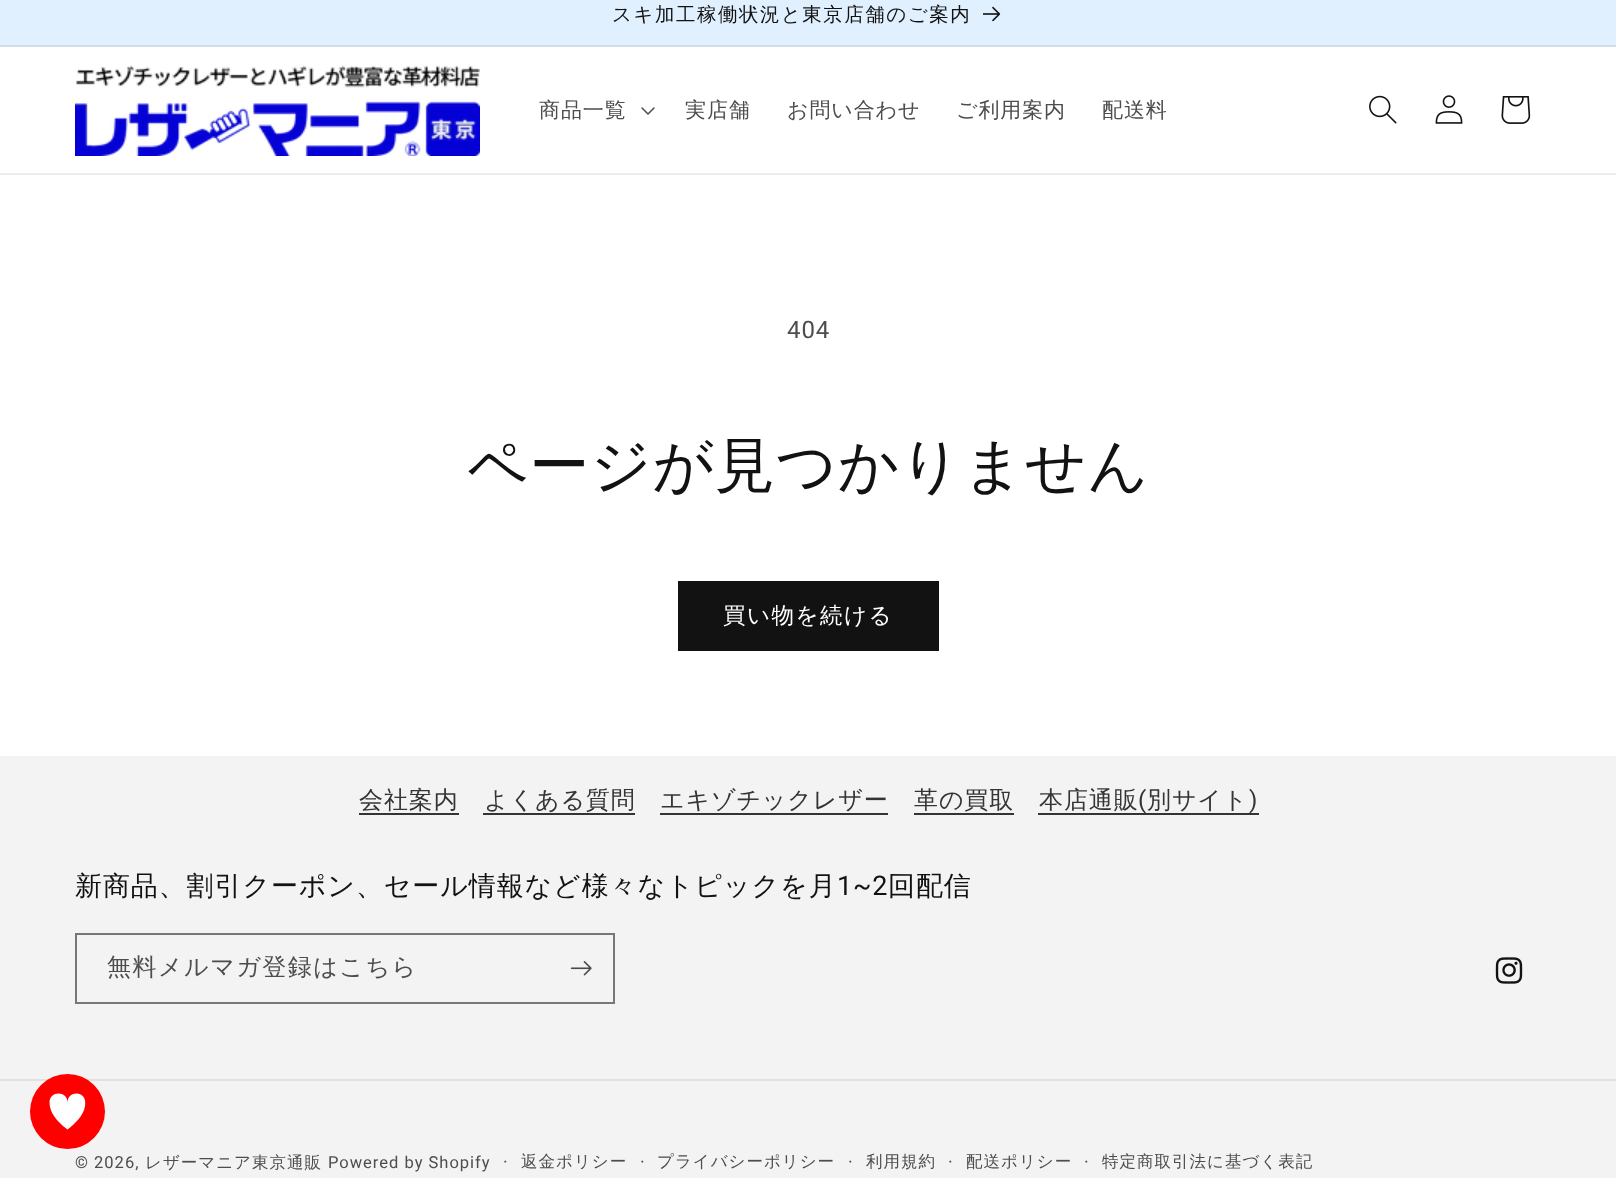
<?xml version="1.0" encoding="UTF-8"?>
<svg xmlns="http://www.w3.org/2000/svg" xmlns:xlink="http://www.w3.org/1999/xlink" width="1616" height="1178">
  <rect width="100%" height="100%" fill="#ffffff" />
  <rect width="1616" height="45" fill="#e1f0ff" />
  <rect y="45" width="1616" height="2" fill="#d0deec" />
  <image x="983" y="6" width="18" height="16" xlink:href="image1.png" />
  <rect y="173" width="1616" height="2" fill="#ececec" />
  <image x="75" y="65" width="405" height="91" xlink:href="image2.png" />
  <image x="641" y="107" width="14" height="8" xlink:href="image3.png" />
  <image x="1369" y="95" width="28" height="29" xlink:href="image4.png" />
  <image x="1435" y="95" width="28" height="29" xlink:href="image5.png" />
  <image x="1501" y="96" width="30" height="28" xlink:href="image6.png" />
  <rect x="678" y="581" width="261" height="70" fill="#121212" />
  <rect y="756" width="1616" height="422" fill="#f3f3f3" />
  <rect y="1079" width="1616" height="2" fill="#e1e1e1" />
  <circle cx="67.5" cy="1111.5" r="37.5" fill="#ff0000" />
  <path d="M 49.5 1102.5 c 0 -12 18 -12 18 0 c 0 -12.5 20.5 -12.5 17.5 3.5 c -1.5 10 -10 17.5 -17.5 23.5 c -12 -9 -18 -18 -18 -27 z" fill="#ffffff" />
  <rect x="359" y="813" width="100" height="2" fill="#343434" />
  <rect x="483" y="813" width="152" height="2" fill="#343434" />
  <rect x="660" y="813" width="228" height="2" fill="#343434" />
  <rect x="914" y="813" width="100" height="2" fill="#343434" />
  <rect x="1038" y="813" width="221" height="2" fill="#343434" />
  <rect x="76" y="934" width="538" height="69" fill="none" stroke="#777777" stroke-width="2" />
  <image x="570" y="961" width="22" height="15" xlink:href="image7.png" />
  <image x="1495" y="957" width="28" height="27" xlink:href="image8.png" />
  <text x="612" y="21" style="font-family: WenQuanYi Zen Hei; font-size: 19.5px; font-weight: 500; letter-spacing: 1.5px; fill: #121212">スキ加工稼働状況と東京店舗のご案内</text>
  <text x="539" y="117" style="font-family: WenQuanYi Zen Hei; font-size: 21px; font-weight: 500; letter-spacing: 0.9px; fill: #4d4d4d">商品一覧</text>
  <text x="685" y="117" style="font-family: WenQuanYi Zen Hei; font-size: 21px; font-weight: 500; letter-spacing: 0.9px; fill: #4d4d4d">実店舗</text>
  <text x="787" y="117" style="font-family: WenQuanYi Zen Hei; font-size: 21px; font-weight: 500; letter-spacing: 0.9px; fill: #4d4d4d">お問い合わせ</text>
  <text x="956" y="117" style="font-family: WenQuanYi Zen Hei; font-size: 21px; font-weight: 500; letter-spacing: 0.9px; fill: #4d4d4d">ご利用案内</text>
  <text x="1102" y="117" style="font-family: WenQuanYi Zen Hei; font-size: 21px; font-weight: 500; letter-spacing: 0.9px; fill: #4d4d4d">配送料</text>
  <text x="787" y="338" style="font-family: Roboto; font-size: 24px; letter-spacing: 0.9px; fill: #4d4d4d">404</text>
  <text x="467" y="486" style="font-family: WenQuanYi Zen Hei; font-size: 60px; font-weight: 500; letter-spacing: 0.9px; fill: #121212">ページが見つかりません</text>
  <text x="723" y="623" style="font-family: WenQuanYi Zen Hei; font-size: 22.5px; font-weight: 500; letter-spacing: 1.5px; fill: #ffffff">買い物を続ける</text>
  <text x="359" y="808" style="font-family: WenQuanYi Zen Hei; font-size: 24px; font-weight: 500; letter-spacing: 0.9px; fill: #343434">会社案内</text>
  <text x="484" y="808" style="font-family: WenQuanYi Zen Hei; font-size: 24px; font-weight: 500; letter-spacing: 0.9px; fill: #343434">よくある質問</text>
  <text x="660" y="808" style="font-family: WenQuanYi Zen Hei; font-size: 24px; font-weight: 500; letter-spacing: 0.9px; fill: #343434">エキゾチックレザー</text>
  <text x="914" y="808" style="font-family: WenQuanYi Zen Hei; font-size: 24px; font-weight: 500; letter-spacing: 0.9px; fill: #343434">革の買取</text>
  <text x="1039" y="808" style="font-family: WenQuanYi Zen Hei; font-size: 24px; font-weight: 500; letter-spacing: 0.9px; fill: #343434">本店通販</text>
  <text x="1138" y="808" style="font-family: Roboto; font-size: 24px; letter-spacing: 0.9px; fill: #343434">(</text>
  <text x="1147" y="808" style="font-family: WenQuanYi Zen Hei; font-size: 24px; font-weight: 500; letter-spacing: 0.9px; fill: #343434">別サイト</text>
  <text x="1249" y="808" style="font-family: Roboto; font-size: 24px; letter-spacing: 0.9px; fill: #343434">)</text>
  <text x="75" y="895" style="font-family: WenQuanYi Zen Hei; font-size: 27px; font-weight: 500; letter-spacing: 0.9px; fill: #121212">新商品、割引クーポン、セール情報など様々なトピックを月</text>
  <text x="837" y="895" style="font-family: Roboto; font-size: 27px; letter-spacing: 0.9px; fill: #121212">1~2</text>
  <text x="888" y="895" style="font-family: WenQuanYi Zen Hei; font-size: 27px; font-weight: 500; letter-spacing: 0.9px; fill: #121212">回配信</text>
  <text x="107" y="975" style="font-family: WenQuanYi Zen Hei; font-size: 24px; font-weight: 500; letter-spacing: 1.5px; fill: #4d4d4d">無料メルマガ登録はこちら</text>
  <text x="75" y="1168" style="font-family: Roboto; font-size: 16.5px; letter-spacing: 1px; fill: #4d4d4d">© 2026,</text>
  <text x="145" y="1168" style="font-family: WenQuanYi Zen Hei; font-size: 16.5px; font-weight: 500; letter-spacing: 1px; fill: #4d4d4d">レザーマニア東京通販</text>
  <text x="328" y="1168" style="font-family: Roboto; font-size: 16.5px; letter-spacing: 1px; fill: #4d4d4d">Powered by Shopify</text>
  <text x="503" y="1168" style="font-family: Roboto; font-size: 18px; letter-spacing: 1px; fill: #4d4d4d">·</text>
  <text x="521" y="1167" style="font-family: WenQuanYi Zen Hei; font-size: 16.5px; font-weight: 500; letter-spacing: 1px; fill: #4d4d4d">返金ポリシー</text>
  <text x="640" y="1168" style="font-family: Roboto; font-size: 18px; letter-spacing: 1px; fill: #4d4d4d">·</text>
  <text x="657" y="1167" style="font-family: WenQuanYi Zen Hei; font-size: 16.5px; font-weight: 500; letter-spacing: 1px; fill: #4d4d4d">プライバシーポリシー</text>
  <text x="848" y="1168" style="font-family: Roboto; font-size: 18px; letter-spacing: 1px; fill: #4d4d4d">·</text>
  <text x="866" y="1167" style="font-family: WenQuanYi Zen Hei; font-size: 16.5px; font-weight: 500; letter-spacing: 1px; fill: #4d4d4d">利用規約</text>
  <text x="948" y="1168" style="font-family: Roboto; font-size: 18px; letter-spacing: 1px; fill: #4d4d4d">·</text>
  <text x="966" y="1167" style="font-family: WenQuanYi Zen Hei; font-size: 16.5px; font-weight: 500; letter-spacing: 1px; fill: #4d4d4d">配送ポリシー</text>
  <text x="1084" y="1168" style="font-family: Roboto; font-size: 18px; letter-spacing: 1px; fill: #4d4d4d">·</text>
  <text x="1102" y="1167" style="font-family: WenQuanYi Zen Hei; font-size: 16.5px; font-weight: 500; letter-spacing: 1px; fill: #4d4d4d">特定商取引法に基づく表記</text>
</svg>
